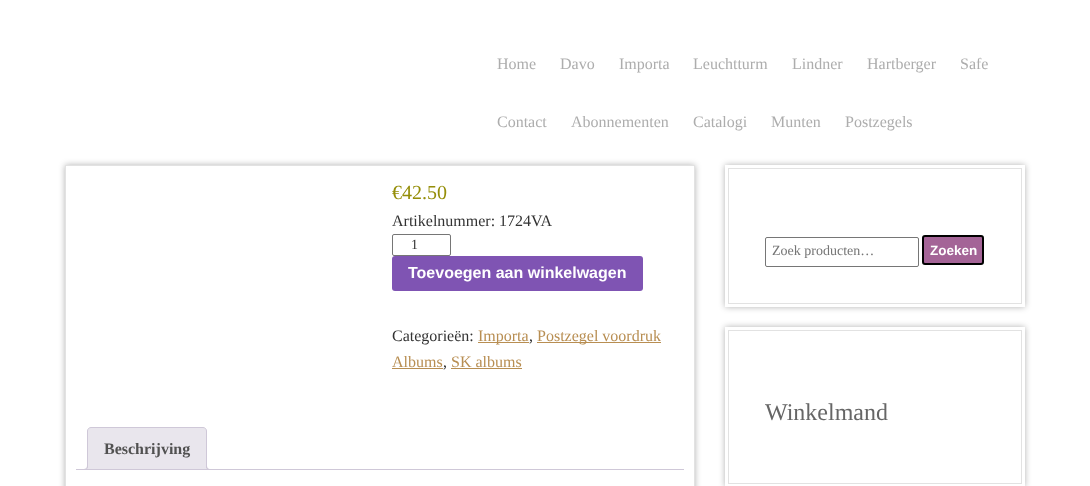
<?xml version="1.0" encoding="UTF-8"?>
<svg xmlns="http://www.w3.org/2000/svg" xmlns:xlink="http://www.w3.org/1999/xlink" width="1090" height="486">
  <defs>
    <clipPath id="clip1"><path d="M 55 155 h 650 v 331 h -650 z m 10 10 h 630 v 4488 h -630 z" clip-rule="evenodd" /></clipPath>
    <clipPath id="clip2"><rect x="76" y="427" width="608" height="43" /></clipPath>
    <clipPath id="clip3"><path d="M 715 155 h 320 v 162 h -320 z m 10 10 h 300 v 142 h -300 z" clip-rule="evenodd" /></clipPath>
    <clipPath id="clip4"><path d="M 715 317 h 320 v 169 h -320 z m 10 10 h 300 v 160 h -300 z" clip-rule="evenodd" /></clipPath>
  </defs>
  <rect width="100%" height="100%" fill="#ffffff" />
  <g clip-path="url(#clip1)">
    <rect x="65" y="165" width="630" height="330" fill="#000000" fill-opacity="0.3" filter="blur(3px)" />
  </g>
  <rect x="65.5" y="165.5" width="629" height="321" fill="none" stroke="#e2e2e2" />
  <rect x="392.5" y="234.5" width="58" height="21" rx="1.5" fill="none" stroke="#767676" />
  <rect x="392" y="256" width="251" height="35" rx="3" fill="#7f54b3" />
  <rect x="478" y="342" width="51" height="1" fill="#b88e52" />
  <rect x="537" y="342" width="124" height="1" fill="#b88e52" />
  <rect x="392" y="368" width="51" height="1" fill="#b88e52" />
  <rect x="451" y="368" width="71" height="1" fill="#b88e52" />
  <path d="M 91 427.5 h 112 c 2 0 3.5 1.5 3.5 3.5 v 38.5 h -119 v -38.5 c 0 -2 1.5 -3.5 3.5 -3.5 z" fill="#e9e6ed" stroke="#cfc8d8" />
  <g clip-path="url(#clip2)">
    <path d="M 85 470 v 2 c 3.5 0 5 -1.5 5 -5 h -2 c -0.5 1.5 -1.5 2.5 -3 3 z" fill="#e9e6ed" />
  </g>
  <path d="M 83 465 h 5 c 0 3.5 -1.5 5 -5 5 z m 0 0 h 4 c 0 3 -1 4 -4 4 z" fill="#cfc8d8" fill-rule="evenodd" />
  <g clip-path="url(#clip2)">
    <path d="M 204 467 c 0 3.5 1.5 5 5 5 v -2 c -1.5 -0.5 -2.5 -1.5 -3 -3 z" fill="#e9e6ed" />
  </g>
  <path d="M 206 465 h 5 v 5 c -2.5 0 -5 -1 -5 -4 z m 1 0 h 4 v 4 c -2 0 -4 -0.5 -4 -3 z" fill="#cfc8d8" fill-rule="evenodd" />
  <rect x="76" y="469" width="608" height="1" fill="#cfc8d8" />
  <g clip-path="url(#clip3)">
    <rect x="725" y="165" width="300" height="142" fill="#000000" fill-opacity="0.3" filter="blur(3px)" />
  </g>
  <rect x="728.5" y="168.5" width="293" height="135" fill="none" stroke="#e2e2e2" />
  <rect x="765.5" y="237.5" width="153" height="29" rx="1.5" fill="none" stroke="#767676" />
  <rect x="923" y="236" width="60" height="28" rx="2" fill="#a46497" stroke="#000000" stroke-width="2" />
  <g clip-path="url(#clip4)">
    <rect x="725" y="327" width="300" height="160" fill="#000000" fill-opacity="0.3" filter="blur(3px)" />
  </g>
  <rect x="728.5" y="330.5" width="293" height="153" fill="none" stroke="#e2e2e2" />
  <text x="497" y="69" style="font-family: Liberation Serif; font-size: 16px; fill: #adadad">Home</text>
  <text x="560" y="69" style="font-family: Liberation Serif; font-size: 16px; fill: #adadad">Davo</text>
  <text x="619" y="69" style="font-family: Liberation Serif; font-size: 16px; fill: #adadad">Importa</text>
  <text x="693" y="69" style="font-family: Liberation Serif; font-size: 16px; fill: #adadad">Leuchtturm</text>
  <text x="792" y="69" style="font-family: Liberation Serif; font-size: 16px; fill: #adadad">Lindner</text>
  <text x="867" y="69" style="font-family: Liberation Serif; font-size: 16px; fill: #adadad">Hartberger</text>
  <text x="960" y="69" style="font-family: Liberation Serif; font-size: 16px; fill: #adadad">Safe</text>
  <text x="497" y="127" style="font-family: Liberation Serif; font-size: 16px; fill: #adadad">Contact</text>
  <text x="571" y="127" style="font-family: Liberation Serif; font-size: 16px; fill: #adadad">Abonnementen</text>
  <text x="693" y="127" style="font-family: Liberation Serif; font-size: 16px; fill: #adadad">Catalogi</text>
  <text x="771" y="127" style="font-family: Liberation Serif; font-size: 16px; fill: #adadad">Munten</text>
  <text x="845" y="127" style="font-family: Liberation Serif; font-size: 16px; fill: #adadad">Postzegels</text>
  <text x="392" y="199" style="font-family: Liberation Serif; font-size: 20px; fill: #958e09">€42.50</text>
  <text x="392" y="226" style="font-family: Liberation Serif; font-size: 16px; fill: #333333">Artikelnummer: 1724VA</text>
  <text x="411" y="249" style="font-family: Liberation Serif; font-size: 14px; fill: #333333">1</text>
  <text x="408" y="278" style="font-family: Liberation Sans; font-size: 16px; font-weight: bold; fill: #ffffff">Toevoegen aan winkelwagen</text>
  <text x="392" y="341" style="font-family: Liberation Serif; font-size: 16px; fill: #333333">Categorieën:</text>
  <text x="478" y="341" style="font-family: Liberation Serif; font-size: 16px; fill: #b88e52">Importa</text>
  <text x="529" y="341" style="font-family: Liberation Serif; font-size: 16px; fill: #333333">,</text>
  <text x="537" y="341" style="font-family: Liberation Serif; font-size: 16px; fill: #b88e52">Postzegel voordruk</text>
  <text x="392" y="367" style="font-family: Liberation Serif; font-size: 16px; fill: #b88e52">Albums</text>
  <text x="443" y="367" style="font-family: Liberation Serif; font-size: 16px; fill: #333333">,</text>
  <text x="451" y="367" style="font-family: Liberation Serif; font-size: 16px; fill: #b88e52">SK albums</text>
  <text x="104" y="454" style="font-family: Liberation Serif; font-size: 16px; font-weight: bold; fill: #515151">Beschrijving</text>
  <text x="772" y="255" style="font-family: Liberation Serif; font-size: 14px; fill: #757575">Zoek producten…</text>
  <text x="930" y="255" style="font-family: Liberation Sans; font-size: 13.5px; font-weight: bold; fill: #ffffff">Zoeken</text>
  <text x="765" y="420" style="font-family: Liberation Serif; font-size: 24px; fill: #666666">Winkelmand</text>
</svg>
